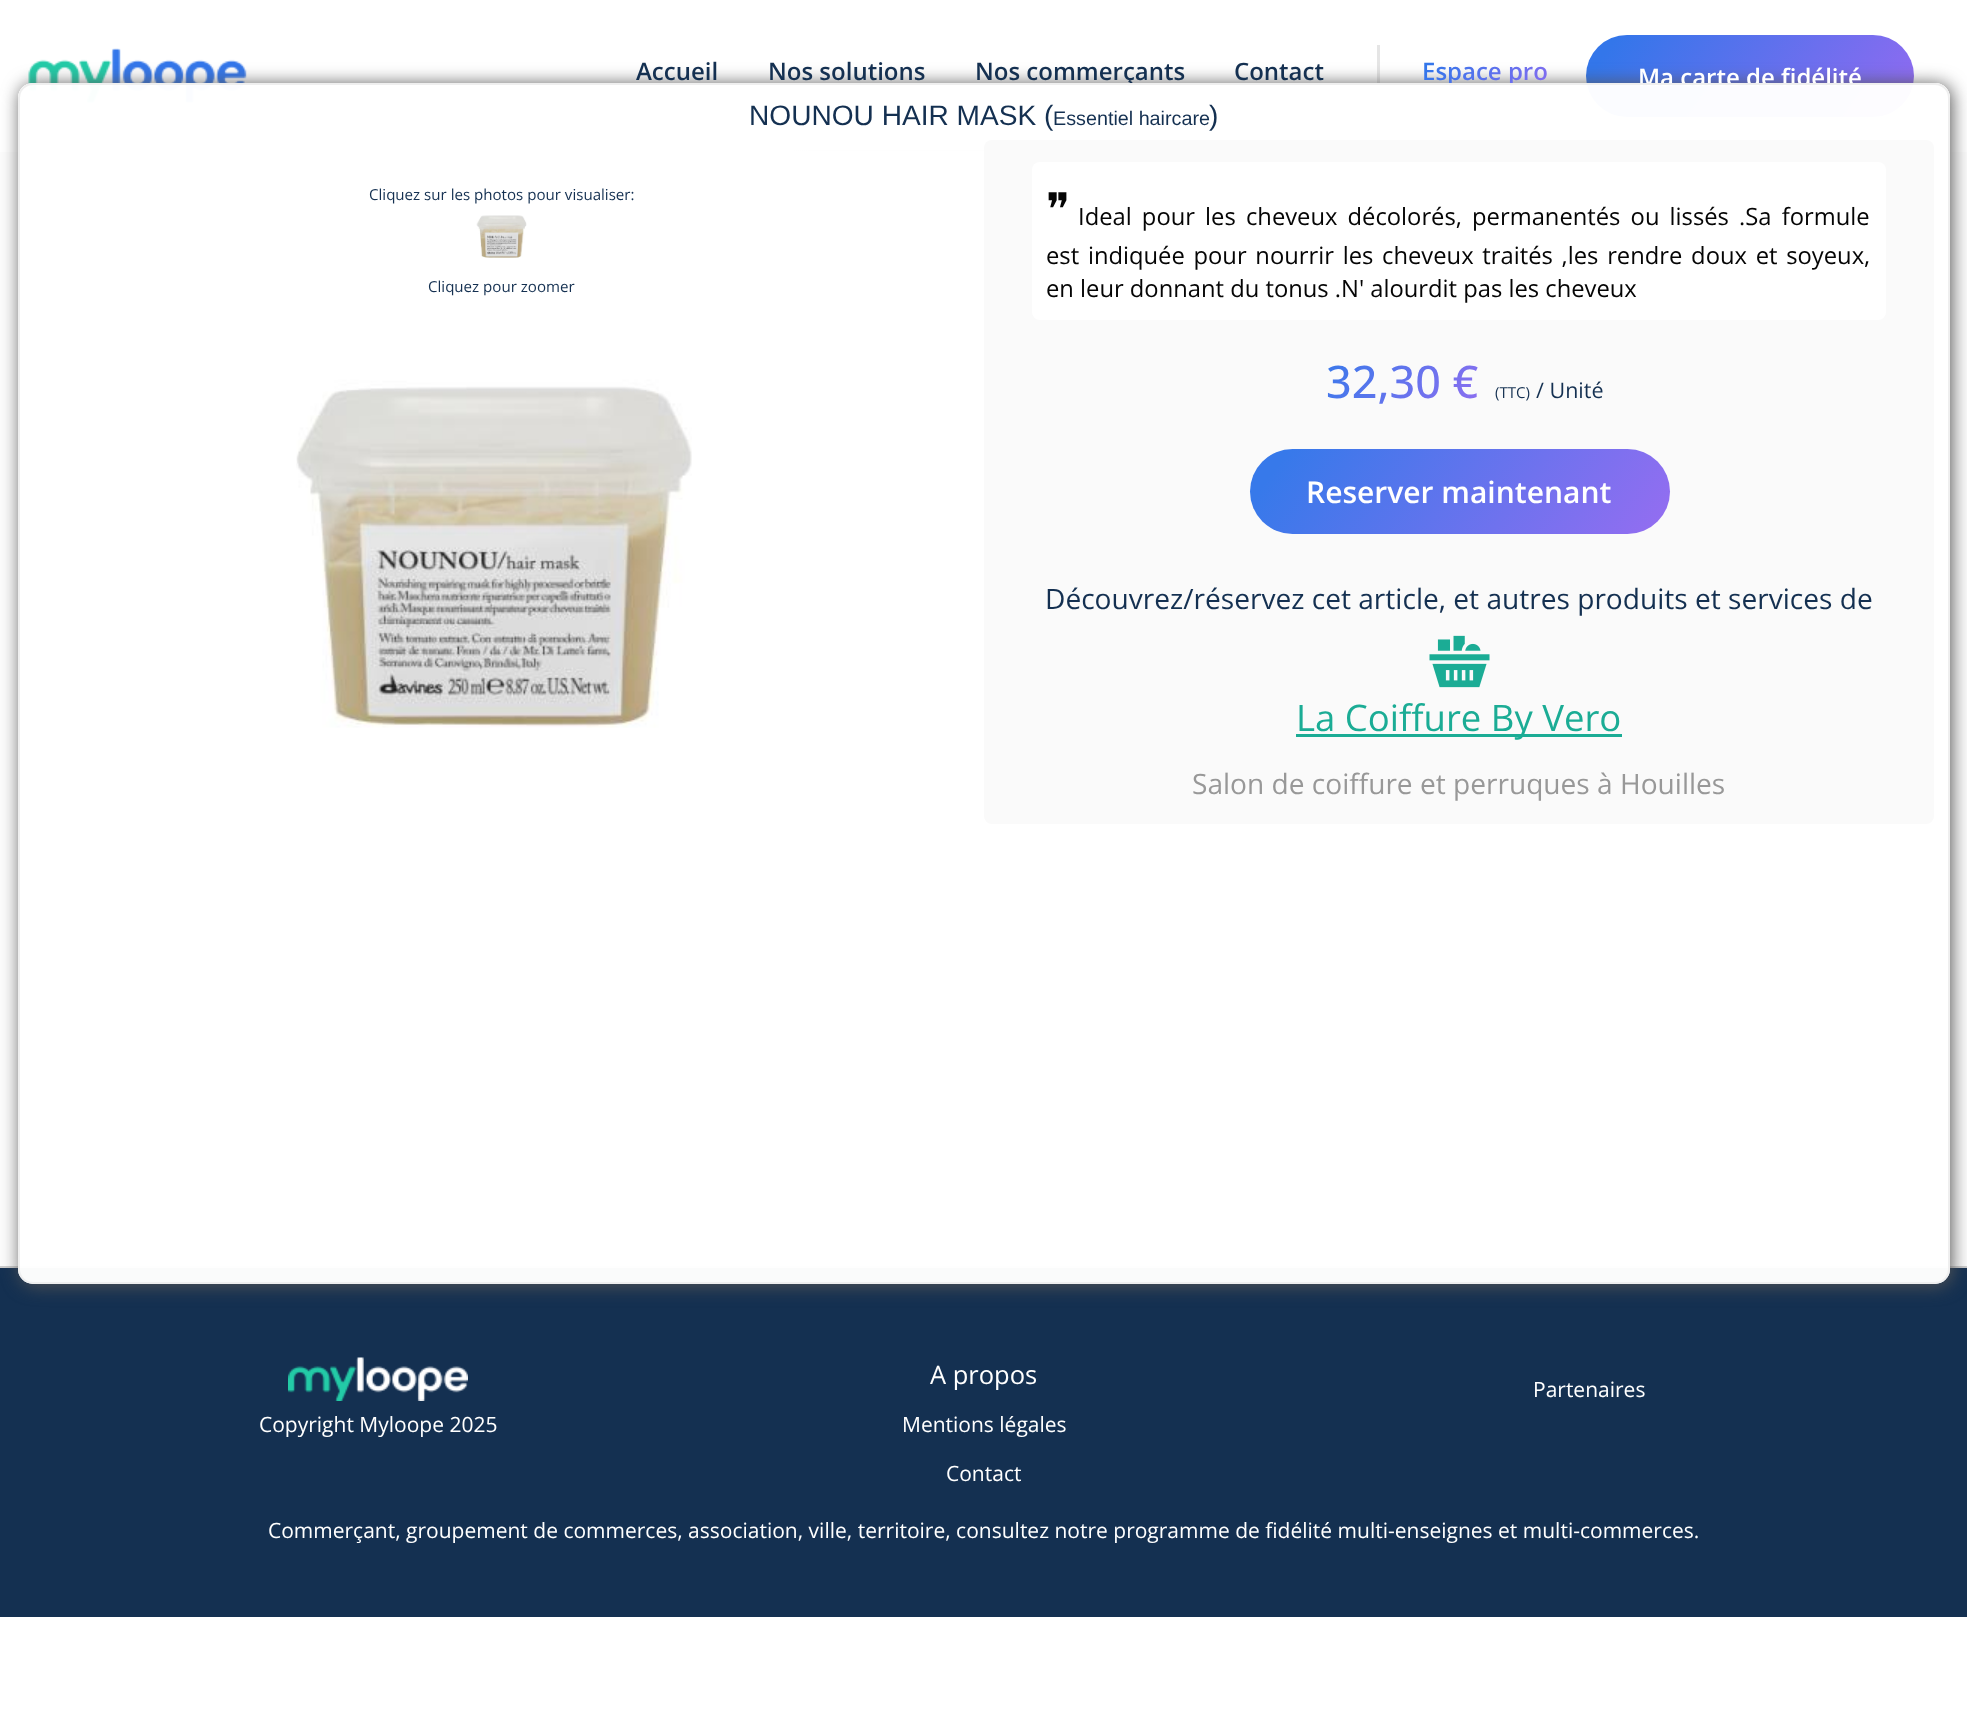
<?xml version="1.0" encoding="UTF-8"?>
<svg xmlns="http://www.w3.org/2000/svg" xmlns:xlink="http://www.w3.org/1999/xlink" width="1967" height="1715">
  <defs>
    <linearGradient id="g1" gradientUnits="userSpaceOnUse" x1="1620" y1="-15" x2="1924" y2="198"><stop offset="0.07" stop-color="#3376ea" /><stop offset="1" stop-color="#a568f2" /></linearGradient>
    <clipPath id="clip1"><path d="M 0 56 h 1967 v 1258 h -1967 z m 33 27 h 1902 c 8.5 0 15 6.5 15 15 v 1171 c 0 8.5 -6.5 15 -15 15 h -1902 c -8.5 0 -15 -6.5 -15 -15 v -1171 c 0 -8.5 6.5 -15 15 -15 z" clip-rule="evenodd" /></clipPath>
    <linearGradient id="g2" gradientUnits="userSpaceOnUse" x1="1425" y1="48" x2="1565" y2="146"><stop offset="0.07" stop-color="#3376ea" /><stop offset="1" stop-color="#a568f2" /></linearGradient>
    <linearGradient id="g3" gradientUnits="userSpaceOnUse" x1="1325" y1="326" x2="1505" y2="453"><stop offset="0.07" stop-color="#3779ea" /><stop offset="1" stop-color="#a76bf2" /></linearGradient>
    <linearGradient id="g4" gradientUnits="userSpaceOnUse" x1="1299" y1="378" x2="1676" y2="643"><stop offset="0.07" stop-color="#3779ea" /><stop offset="1" stop-color="#a76bf2" /></linearGradient>
  </defs>
  <rect width="100%" height="100%" fill="#ffffff" />
  <image x="78" y="150" width="906" height="2" xlink:href="image1.png" />
  <image x="28" y="48" width="219" height="56" xlink:href="image2.png" />
  <rect x="1377" y="45" width="3" height="53" fill="#e5e5e5" />
  <rect x="1586" y="35" width="328" height="82" rx="41" fill="url(#g1)" />
  <rect y="152" width="1967" height="1114" fill="#fcfcfc" />
  <rect y="1268" width="1967" height="349" fill="#143051" />
  <rect y="1266" width="1967" height="2" fill="#cccccc" />
  <g clip-path="url(#clip1)">
    <rect x="20" y="84" width="1932" height="1202" rx="15" fill="#555555" fill-opacity="0.98" filter="blur(9px)" />
  </g>
  <image x="288" y="1357" width="180" height="44" xlink:href="image6.png" />
  <text x="636" y="80" style="font-family: Open Sans; font-size: 24px; font-weight: 600; fill: #143051">Accueil</text>
  <text x="768" y="80" style="font-family: Open Sans; font-size: 24px; font-weight: 600; fill: #143051">Nos solutions</text>
  <text x="975" y="80" style="font-family: Open Sans; font-size: 24px; font-weight: 600; fill: #143051">Nos commerçants</text>
  <text x="1234" y="80" style="font-family: Open Sans; font-size: 24px; font-weight: 600; fill: #143051">Contact</text>
  <text x="1422" y="80" style="font-family: Open Sans; font-size: 24px; font-weight: 600; fill: url(#g2)">Espace pro</text>
  <text x="1638" y="86" style="font-family: Open Sans; font-size: 24px; font-weight: 600; fill: #ffffff">Ma carte de fidélité</text>
  <rect x="18" y="83" width="1932" height="1201" rx="15" fill="#ffffff" fill-opacity="0.98" />
  <rect x="19" y="84" width="1930" height="1199" rx="14" fill="none" stroke="#efefef" stroke-opacity="0.98" stroke-width="2" />
  <text x="749" y="125" style="font-family: Liberation Sans; font-size: 28.1px; fill: #143051">NOUNOU HAIR MASK (</text>
  <text x="1053" y="125" style="font-family: Liberation Sans; font-size: 19.75px; fill: #143051">Essentiel haircare</text>
  <text x="1209" y="125" style="font-family: Liberation Sans; font-size: 28.1px; fill: #143051">)</text>
  <text x="369" y="200" style="font-family: Open Sans; font-size: 15.1px; fill: #143051">Cliquez sur les photos pour visualiser:</text>
  <image x="476" y="215" width="51" height="43" xlink:href="image3.png" />
  <text x="428" y="292" style="font-family: Open Sans; font-size: 15.1px; fill: #143051">Cliquez pour zoomer</text>
  <image x="296" y="295" width="396" height="433" xlink:href="image4.png" />
  <rect x="984" y="140" width="950" height="684" rx="8" fill="#fafafa" />
  <rect x="1032" y="162" width="854" height="158" rx="8" fill="#ffffff" />
  <text x="1046" y="225" style="font-family: DejaVu Sans; font-size: 45px; fill: #050505">❞</text>
  <text x="1078" y="225" word-spacing="4" style="font-family: Open Sans; font-size: 23.75px; fill: #050505">Ideal pour les cheveux décolorés, permanentés ou lissés .Sa formule</text>
  <text x="1046" y="264" word-spacing="2.6" style="font-family: Open Sans; font-size: 23.75px; fill: #050505">est indiquée pour nourrir les cheveux traités ,les rendre doux et soyeux,</text>
  <text x="1046" y="297" style="font-family: Open Sans; font-size: 23.75px; fill: #050505">en leur donnant du tonus .N' alourdit pas les cheveux</text>
  <text x="1326" y="398" style="font-family: Open Sans; font-size: 45px; font-weight: 500; fill: url(#g3)">32,30 €</text>
  <text x="1495" y="398" style="font-family: Open Sans; font-size: 15.1px; fill: #143051">(TTC)</text>
  <text x="1536" y="398" style="font-family: Open Sans; font-size: 21.5px; fill: #143051">/ Unité</text>
  <rect x="1250" y="449" width="420" height="85" rx="42.5" fill="url(#g4)" />
  <text x="1306" y="503" style="font-family: Open Sans; font-size: 30px; font-weight: 600; fill: #ffffff">Reserver maintenant</text>
  <text x="1045" y="609" style="font-family: Open Sans; font-size: 28.1px; fill: #143051">Découvrez/réservez cet article, et autres produits et services de</text>
  <image x="1429" y="635" width="61" height="53" xlink:href="image5.png" />
  <rect x="1296" y="734" width="326" height="3" fill="#1bac95" />
  <text x="1296" y="731" style="font-family: Open Sans; font-size: 36.5px; fill: #1bac95">La Coiffure By Vero</text>
  <text x="1192" y="794" style="font-family: Open Sans; font-size: 28.1px; fill: #989898">Salon de coiffure et perruques à Houilles</text>
  <text x="930" y="1384" style="font-family: Open Sans; font-size: 25.5px; fill: #ffffff">A propos</text>
  <text x="902" y="1432" style="font-family: Open Sans; font-size: 21px; fill: #ffffff">Mentions légales</text>
  <text x="946" y="1481" style="font-family: Open Sans; font-size: 21px; fill: #ffffff">Contact</text>
  <text x="1533" y="1397" style="font-family: Open Sans; font-size: 21px; fill: #ffffff">Partenaires</text>
  <text x="259" y="1432" style="font-family: Open Sans; font-size: 21px; fill: #ffffff">Copyright Myloope 2025</text>
  <text x="268" y="1538" style="font-family: Open Sans; font-size: 21px; fill: #ffffff">Commerçant, groupement de commerces, association, ville, territoire, consultez notre programme de fidélité multi-enseignes et multi-commerces.</text>
</svg>
